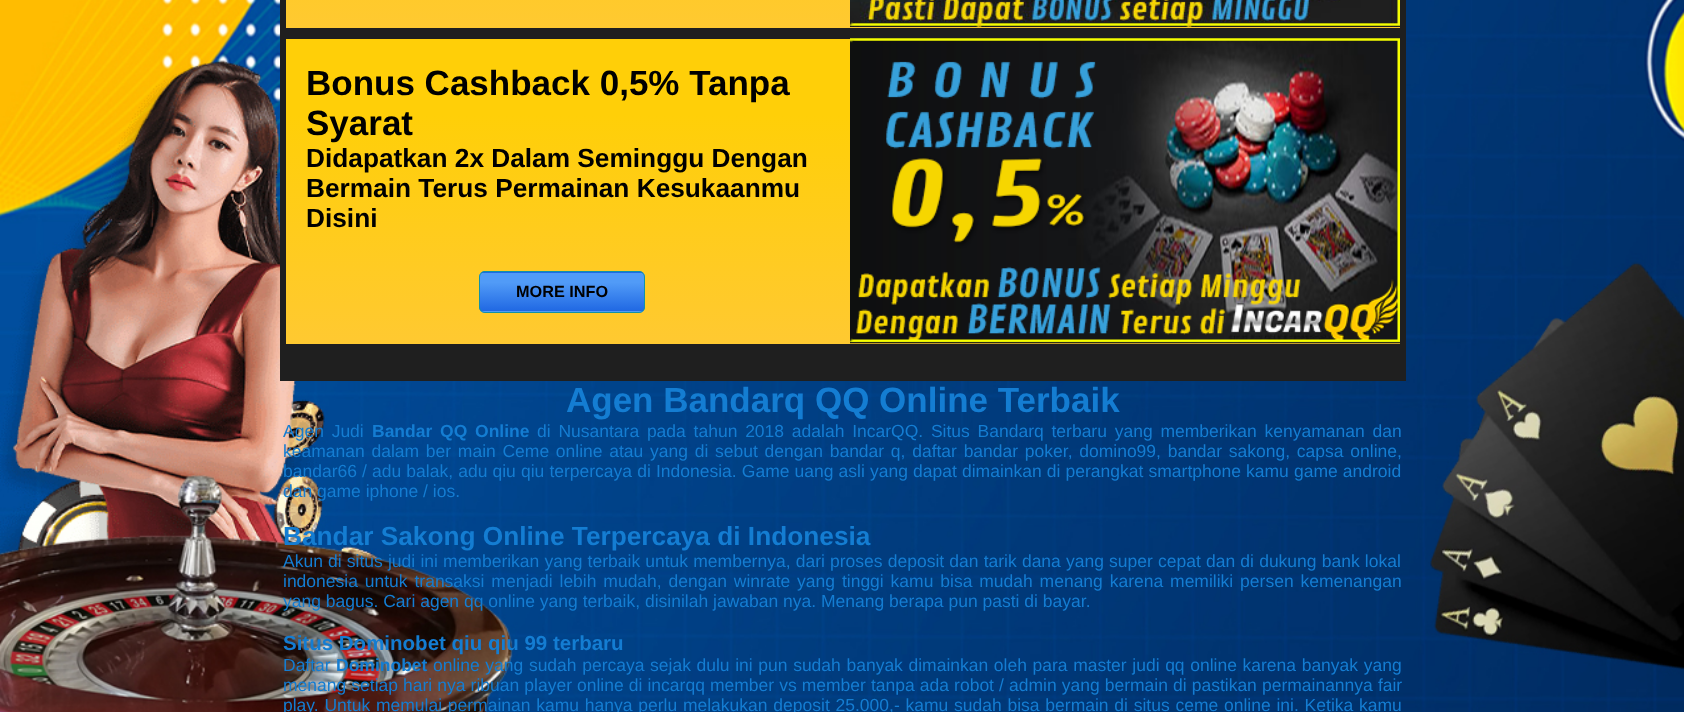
<?xml version="1.0" encoding="UTF-8"?>
<svg xmlns="http://www.w3.org/2000/svg" xmlns:xlink="http://www.w3.org/1999/xlink" width="1684" height="712">
  <defs>
    <linearGradient id="g1" gradientUnits="userSpaceOnUse" x1="843" y1="28" x2="843" y2="-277"><stop offset="0" stop-color="#ffc931" /><stop offset="0.75" stop-color="#ffcf08" /></linearGradient>
    <linearGradient id="g2" gradientUnits="userSpaceOnUse" x1="843" y1="344" x2="843" y2="39"><stop offset="0" stop-color="#ffc931" /><stop offset="0.75" stop-color="#ffcf08" /></linearGradient>
    <clipPath id="clip1"><rect x="479" y="271" width="166" height="42" rx="6" /></clipPath>
    <linearGradient id="g3" gradientUnits="userSpaceOnUse" x1="562" y1="273" x2="562" y2="234"><stop offset="0" stop-color="#2068e3" /><stop offset="0.75" stop-color="#519bf7" /></linearGradient>
    <linearGradient id="g4" gradientUnits="userSpaceOnUse" x1="562" y1="311" x2="562" y2="273"><stop offset="0" stop-color="#2068e3" /><stop offset="0.75" stop-color="#519bf7" /></linearGradient>
    <linearGradient id="g5" gradientUnits="userSpaceOnUse" x1="562" y1="350" x2="562" y2="311"><stop offset="0" stop-color="#2068e3" /><stop offset="0.75" stop-color="#519bf7" /></linearGradient>
  </defs>
  <rect width="100%" height="100%" fill="#ffffff" />
  <image x="0" y="0" width="1684" height="712" xlink:href="image1.png" />
  <rect x="280" width="1126" height="381" fill="#1f1f1f" />
  <rect x="286" width="1114" height="28" fill="url(#g1)" />
  <image x="850" y="0" width="550" height="27" xlink:href="image2.png" />
  <rect x="286" y="39" width="1114" height="305" fill="url(#g2)" />
  <g clip-path="url(#clip1)">
    <rect x="479" y="271" width="166" height="2" fill="url(#g3)" />
    <rect x="479" y="273" width="166" height="38" fill="url(#g4)" />
    <rect x="479" y="311" width="166" height="2" fill="url(#g5)" />
  </g>
  <rect x="479.5" y="271.5" width="165" height="41" rx="5.5" fill="none" stroke="#1392a6" />
  <image x="850" y="38" width="550" height="306" xlink:href="image3.png" />
  <text x="306" y="95" style="font-family: Liberation Sans; font-size: 35px; font-weight: bold; fill: #000000">Bonus Cashback 0,5% Tanpa</text>
  <text x="306" y="135" style="font-family: Liberation Sans; font-size: 35px; font-weight: bold; fill: #000000">Syarat</text>
  <text x="306" y="167" style="font-family: Liberation Sans; font-size: 26.25px; font-weight: bold; fill: #000000">Didapatkan 2x Dalam Seminggu Dengan</text>
  <text x="306" y="197" style="font-family: Liberation Sans; font-size: 26.25px; font-weight: bold; fill: #000000">Bermain Terus Permainan Kesukaanmu</text>
  <text x="306" y="227" style="font-family: Liberation Sans; font-size: 26.25px; font-weight: bold; fill: #000000">Disini</text>
  <text x="516" y="297" style="font-family: Liberation Sans; font-size: 16.25px; font-weight: bold; fill: #000000">MORE INFO</text>
  <text x="566" y="412" style="font-family: Liberation Sans; font-size: 35px; font-weight: bold; fill: #147dd2">Agen Bandarq QQ Online Terbaik</text>
  <text x="283" y="437" word-spacing="2.9" style="font-family: Liberation Sans; font-size: 17.5px; fill: #147dd2">Agen Judi</text>
  <text x="372" y="437" word-spacing="2.9" style="font-family: Liberation Sans; font-size: 17.5px; font-weight: bold; fill: #147dd2">Bandar QQ Online</text>
  <text x="537" y="437" word-spacing="2.9" style="font-family: Liberation Sans; font-size: 17.5px; fill: #147dd2">di Nusantara pada tahun 2018 adalah IncarQQ. Situs Bandarq terbaru yang memberikan kenyamanan dan</text>
  <text x="283" y="457" word-spacing="1.85" style="font-family: Liberation Sans; font-size: 17.5px; fill: #147dd2">keamanan dalam ber main Ceme online atau yang di sebut dengan bandar q, daftar bandar poker, domino99, bandar sakong, capsa online,</text>
  <text x="283" y="477" word-spacing="0.25" style="font-family: Liberation Sans; font-size: 17.5px; fill: #147dd2">bandar66 / adu balak, adu qiu qiu terpercaya di Indonesia. Game uang asli yang dapat dimainkan di perangkat smartphone kamu game android</text>
  <text x="283" y="497" style="font-family: Liberation Sans; font-size: 17.5px; fill: #147dd2">dan game iphone / ios.</text>
  <text x="283" y="545" style="font-family: Liberation Sans; font-size: 26.25px; font-weight: bold; fill: #147dd2">Bandar Sakong Online Terpercaya di Indonesia</text>
  <text x="283" y="567" word-spacing="0.3" style="font-family: Liberation Sans; font-size: 17.5px; fill: #147dd2">Akun di situs judi ini memberikan yang terbaik untuk membernya, dari proses deposit dan tarik dana yang super cepat dan di dukung bank lokal</text>
  <text x="283" y="587" word-spacing="2" style="font-family: Liberation Sans; font-size: 17.5px; fill: #147dd2">indonesia untuk transaksi menjadi lebih mudah, dengan winrate yang tinggi kamu bisa mudah menang karena memiliki persen kemenangan</text>
  <text x="283" y="607" style="font-family: Liberation Sans; font-size: 17.5px; fill: #147dd2">yang bagus. Cari agen qq online yang terbaik, disinilah jawaban nya. Menang berapa pun pasti di bayar.</text>
  <text x="283" y="650" style="font-family: Liberation Sans; font-size: 20.5px; font-weight: bold; fill: #147dd2">Situs Dominobet qiu qiu 99 terbaru</text>
  <text x="283" y="671" style="font-family: Liberation Sans; font-size: 17.5px; fill: #147dd2">Daftar</text>
  <text x="336" y="671" style="font-family: Liberation Sans; font-size: 17.5px; font-weight: bold; fill: #147dd2">Dominobet</text>
  <text x="433" y="671" word-spacing="0.75" style="font-family: Liberation Sans; font-size: 17.5px; fill: #147dd2">online yang sudah percaya sejak dulu ini pun sudah banyak dimainkan oleh para master judi qq online karena banyak yang</text>
  <text x="283" y="691" word-spacing="0.2" style="font-family: Liberation Sans; font-size: 17.5px; fill: #147dd2">menang setiap hari nya ribuan player online di incarqq member vs member tanpa ada robot / admin yang bermain di pastikan permainannya fair</text>
  <text x="283" y="711" word-spacing="0.9" style="font-family: Liberation Sans; font-size: 17.5px; fill: #147dd2">play. Untuk memulai permainan kamu hanya perlu melakukan deposit 25.000,- kamu sudah bisa bermain di situs ceme online ini. Ketika kamu</text>
</svg>
